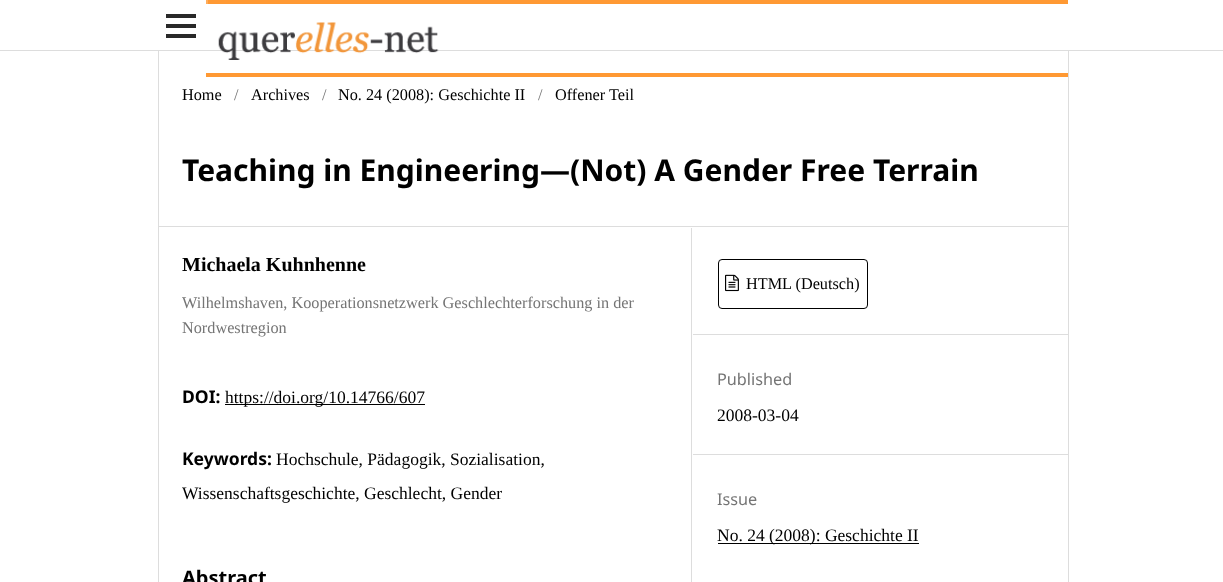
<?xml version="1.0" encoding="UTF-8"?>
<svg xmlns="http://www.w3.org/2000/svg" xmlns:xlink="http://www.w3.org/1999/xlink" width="1223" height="582">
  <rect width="100%" height="100%" fill="#ffffff" />
  <rect y="50" width="1223" height="1" fill="#dddddd" />
  <rect x="166" y="34" width="30" height="4" fill="#292929" />
  <rect x="166" y="14" width="30" height="4" fill="#292929" />
  <rect x="166" y="24" width="30" height="4" fill="#292929" />
  <rect x="206" width="862" height="4" fill="#ff9933" />
  <rect x="206" width="2" height="4" fill="#ffad5c" />
  <rect x="206" y="73" width="862" height="4" fill="#ff9933" />
  <image x="218" y="22" width="221" height="38" xlink:href="image1.png" />
  <rect x="158" y="226" width="910" height="1" fill="#dddddd" />
  <rect x="158" y="51" width="1" height="531" fill="#dddddd" />
  <rect x="691" y="228" width="1" height="354" fill="#dddddd" />
  <rect x="225" y="404" width="200" height="1" fill="#000000" />
  <rect x="693" y="334" width="375" height="1" fill="#dddddd" />
  <rect x="718.5" y="259.5" width="149" height="49" rx="3.5" fill="none" stroke="#000000" />
  <image x="725" y="274" width="14" height="18" xlink:href="image2.png" />
  <rect x="693" y="454" width="375" height="1" fill="#dddddd" />
  <rect x="718" y="543" width="201" height="1" fill="#000000" />
  <rect x="1068" y="51" width="1" height="531" fill="#dddddd" />
  <text x="182" y="100" style="font-family: Liberation Serif; font-size: 16.25px; fill: #000000">Home</text>
  <text x="234" y="100" style="font-family: Liberation Serif; font-size: 16.25px; fill: #757575">/</text>
  <text x="251" y="100" style="font-family: Liberation Serif; font-size: 16.25px; fill: #000000">Archives</text>
  <text x="322" y="100" style="font-family: Liberation Serif; font-size: 16.25px; fill: #757575">/</text>
  <text x="338" y="100" style="font-family: Liberation Serif; font-size: 16.25px; fill: #000000">No. 24 (2008): Geschichte II</text>
  <text x="538" y="100" style="font-family: Liberation Serif; font-size: 16.25px; fill: #757575">/</text>
  <text x="555" y="100" style="font-family: Liberation Serif; font-size: 16.25px; fill: #000000">Offener Teil</text>
  <text x="182" y="181" style="font-family: Noto Sans; font-size: 30px; font-weight: bold; fill: #000000">Teaching in Engineering—(Not) A Gender Free Terrain</text>
  <text x="182" y="271" style="font-family: Liberation Serif; font-size: 20px; font-weight: bold; fill: #000000">Michaela Kuhnhenne</text>
  <text x="182" y="308" style="font-family: Liberation Serif; font-size: 16.25px; fill: #757575">Wilhelmshaven, Kooperationsnetzwerk Geschlechterforschung in der</text>
  <text x="182" y="333" style="font-family: Liberation Serif; font-size: 16.25px; fill: #757575">Nordwestregion</text>
  <text x="182" y="403" style="font-family: Noto Sans; font-size: 17.5px; font-weight: bold; fill: #000000">DOI:</text>
  <text x="225" y="403" style="font-family: Liberation Serif; font-size: 17.5px; fill: #000000">https://doi.org/10.14766/607</text>
  <text x="182" y="465" style="font-family: Noto Sans; font-size: 17.5px; font-weight: bold; fill: #000000">Keywords:</text>
  <text x="276" y="465" style="font-family: Liberation Serif; font-size: 17.5px; fill: #000000">Hochschule, Pädagogik, Sozialisation,</text>
  <text x="182" y="499" style="font-family: Liberation Serif; font-size: 17.5px; fill: #000000">Wissenschaftsgeschichte, Geschlecht, Gender</text>
  <text x="182" y="585" style="font-family: Noto Sans; font-size: 20px; font-weight: bold; fill: #000000">Abstract</text>
  <text x="746" y="289" style="font-family: Liberation Serif; font-size: 16.25px; fill: #000000">HTML (Deutsch)</text>
  <text x="717" y="385" style="font-family: Noto Sans; font-size: 16.25px; fill: #757575">Published</text>
  <text x="717" y="421" style="font-family: Liberation Serif; font-size: 17.5px; fill: #000000">2008-03-04</text>
  <text x="717" y="505" style="font-family: Noto Sans; font-size: 16.25px; fill: #757575">Issue</text>
  <text x="717" y="541" style="font-family: Liberation Serif; font-size: 17.5px; fill: #000000">No. 24 (2008): Geschichte II</text>
</svg>
